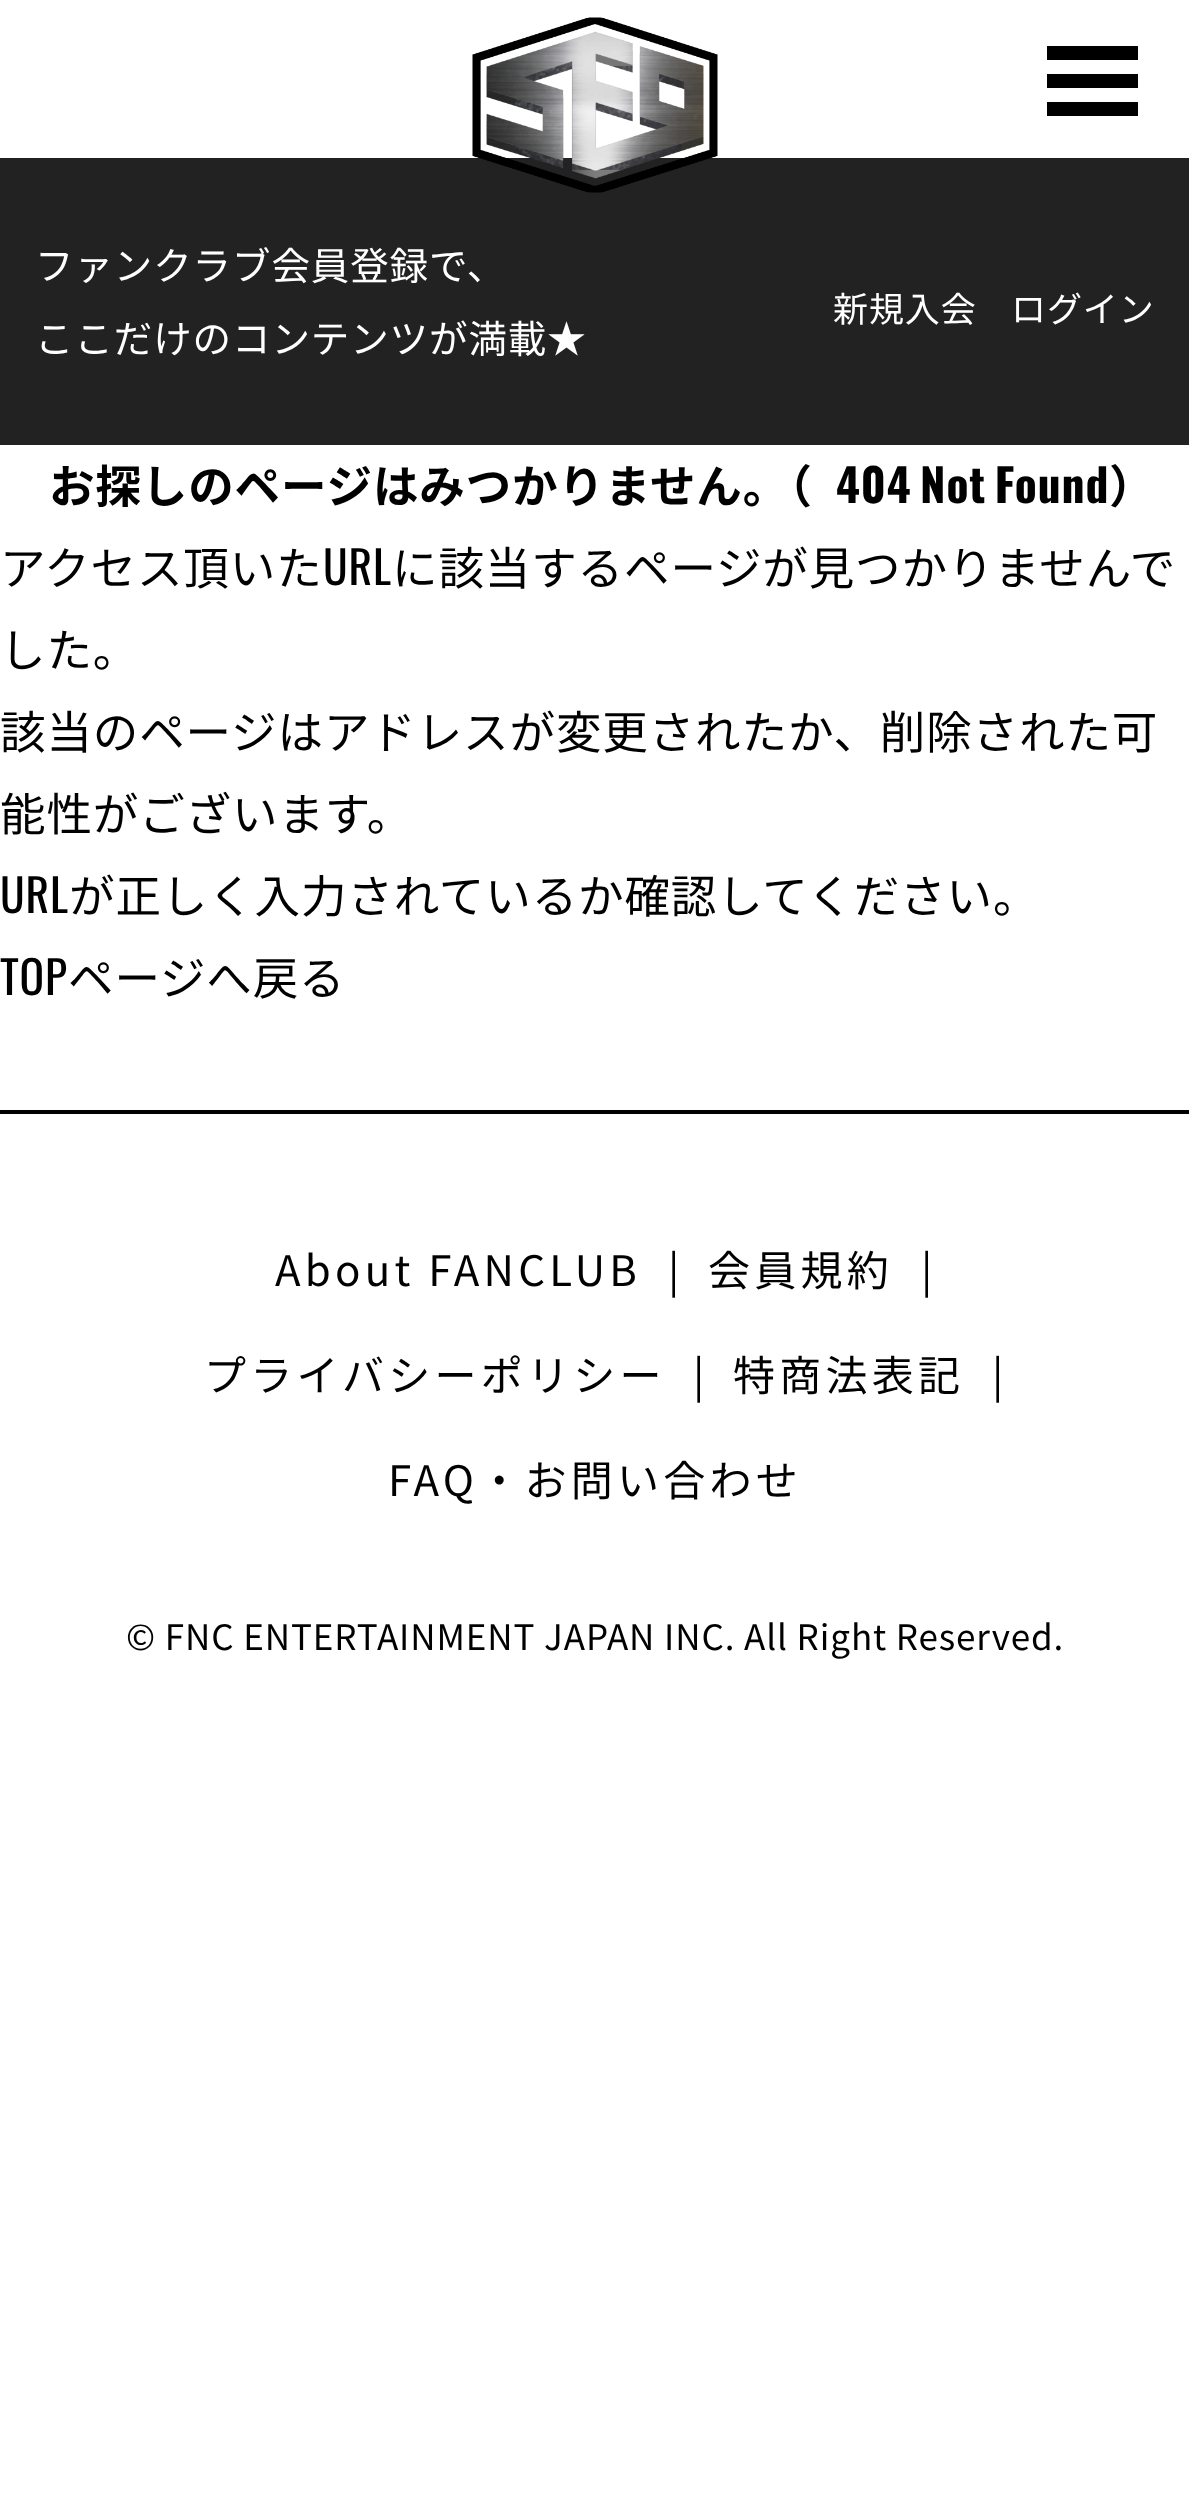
<?xml version="1.0" encoding="UTF-8"?>
<svg xmlns="http://www.w3.org/2000/svg" xmlns:xlink="http://www.w3.org/1999/xlink" width="1189" height="2520">
  <rect width="100%" height="100%" fill="#ffffff" />
  <rect y="158" width="1189" height="287" fill="#222222" />
  <image x="486" y="31" width="218" height="148" xlink:href="image2.png" />
  <image x="472" y="17" width="246" height="176" xlink:href="image1.png" />
  <rect x="1047" y="46" width="91" height="14" fill="#000000" />
  <rect x="1047" y="74" width="91" height="14" fill="#000000" />
  <rect x="1047" y="102" width="91" height="14" fill="#000000" />
  <rect y="1110" width="1189" height="4" fill="#000000" />
  <text x="35" y="280" style="font-family: Noto Sans JP; font-size: 38.5px; letter-spacing: 0.9px; fill: #ffffff">ファンクラブ会員登録で、</text>
  <text x="35" y="353" style="font-family: Noto Sans JP; font-size: 38.5px; letter-spacing: 0.9px; fill: #ffffff">ここだけのコンテンツが満載★</text>
  <text x="833" y="322" style="font-family: Noto Sans JP; font-size: 35px; letter-spacing: 0.9px; fill: #ffffff">新規入会</text>
  <text x="1011" y="322" style="font-family: Noto Sans JP; font-size: 35px; letter-spacing: 0.9px; fill: #ffffff">ログイン</text>
  <text x="49" y="503" style="font-family: Noto Sans JP; font-size: 45.5px; font-weight: bold; letter-spacing: 0.9px; fill: #000000">お探しのページはみつかりません。（</text>
  <text x="836" y="503" word-spacing="-4" style="font-family: Oswald; font-size: 45.5px; font-weight: bold; letter-spacing: 0.9px; fill: #000000">404 Not Found</text>
  <text x="1109" y="503" style="font-family: Noto Sans JP; font-size: 45.5px; font-weight: bold; letter-spacing: 0.9px; fill: #000000">）</text>
  <text x="0" y="585" style="font-family: Noto Sans JP; font-size: 45.5px; letter-spacing: 0.9px; fill: #000000">アクセス頂いた</text>
  <text x="323" y="585" style="font-family: Oswald; font-size: 45.5px; letter-spacing: 0.9px; fill: #000000">URL</text>
  <text x="392" y="585" style="font-family: Noto Sans JP; font-size: 45.5px; letter-spacing: 0.9px; fill: #000000">に該当するページが見つかりませんで</text>
  <text x="0" y="667" style="font-family: Noto Sans JP; font-size: 45.5px; letter-spacing: 0.9px; fill: #000000">した。</text>
  <text x="0" y="749" style="font-family: Noto Sans JP; font-size: 45.5px; letter-spacing: 0.9px; fill: #000000">該当のページはアドレスが変更されたか、削除された可</text>
  <text x="0" y="831" style="font-family: Noto Sans JP; font-size: 45.5px; letter-spacing: 0.9px; fill: #000000">能性がございます。</text>
  <text x="0" y="913" style="font-family: Oswald; font-size: 45.5px; letter-spacing: 0.9px; fill: #000000">URL</text>
  <text x="69" y="913" style="font-family: Noto Sans JP; font-size: 45.5px; letter-spacing: 0.9px; fill: #000000">が正しく入力されているか確認してください。</text>
  <text x="0" y="995" style="font-family: Oswald; font-size: 45.5px; letter-spacing: 0.9px; fill: #000000">TOP</text>
  <text x="68" y="995" style="font-family: Noto Sans JP; font-size: 45.5px; letter-spacing: 0.9px; fill: #000000">ページへ戻る</text>
  <text x="275" y="1286" style="font-family: Noto Sans JP; font-size: 42px; letter-spacing: 4.25px; fill: #000000">About FANCLUB</text>
  <text x="668" y="1286" style="font-family: Noto Sans JP; font-size: 42px; letter-spacing: 0.9px; fill: #000000">|</text>
  <text x="708" y="1286" style="font-family: Noto Sans JP; font-size: 42px; letter-spacing: 4.25px; fill: #000000">会員規約</text>
  <text x="921" y="1286" style="font-family: Noto Sans JP; font-size: 42px; letter-spacing: 0.9px; fill: #000000">|</text>
  <text x="204" y="1391" style="font-family: Noto Sans JP; font-size: 42px; letter-spacing: 4.25px; fill: #000000">プライバシーポリシー</text>
  <text x="693" y="1391" style="font-family: Noto Sans JP; font-size: 42px; letter-spacing: 0.9px; fill: #000000">|</text>
  <text x="733" y="1391" style="font-family: Noto Sans JP; font-size: 42px; letter-spacing: 4.25px; fill: #000000">特商法表記</text>
  <text x="992" y="1391" style="font-family: Noto Sans JP; font-size: 42px; letter-spacing: 0.9px; fill: #000000">|</text>
  <text x="388" y="1496" style="font-family: Noto Sans JP; font-size: 42px; letter-spacing: 4.25px; fill: #000000">FAQ・お問い合わせ</text>
  <text x="126" y="1650" style="font-family: Noto Sans JP; font-size: 35px; letter-spacing: 0.9px; fill: #000000">© FNC ENTERTAINMENT JAPAN INC. All Right Reserved.</text>
</svg>
